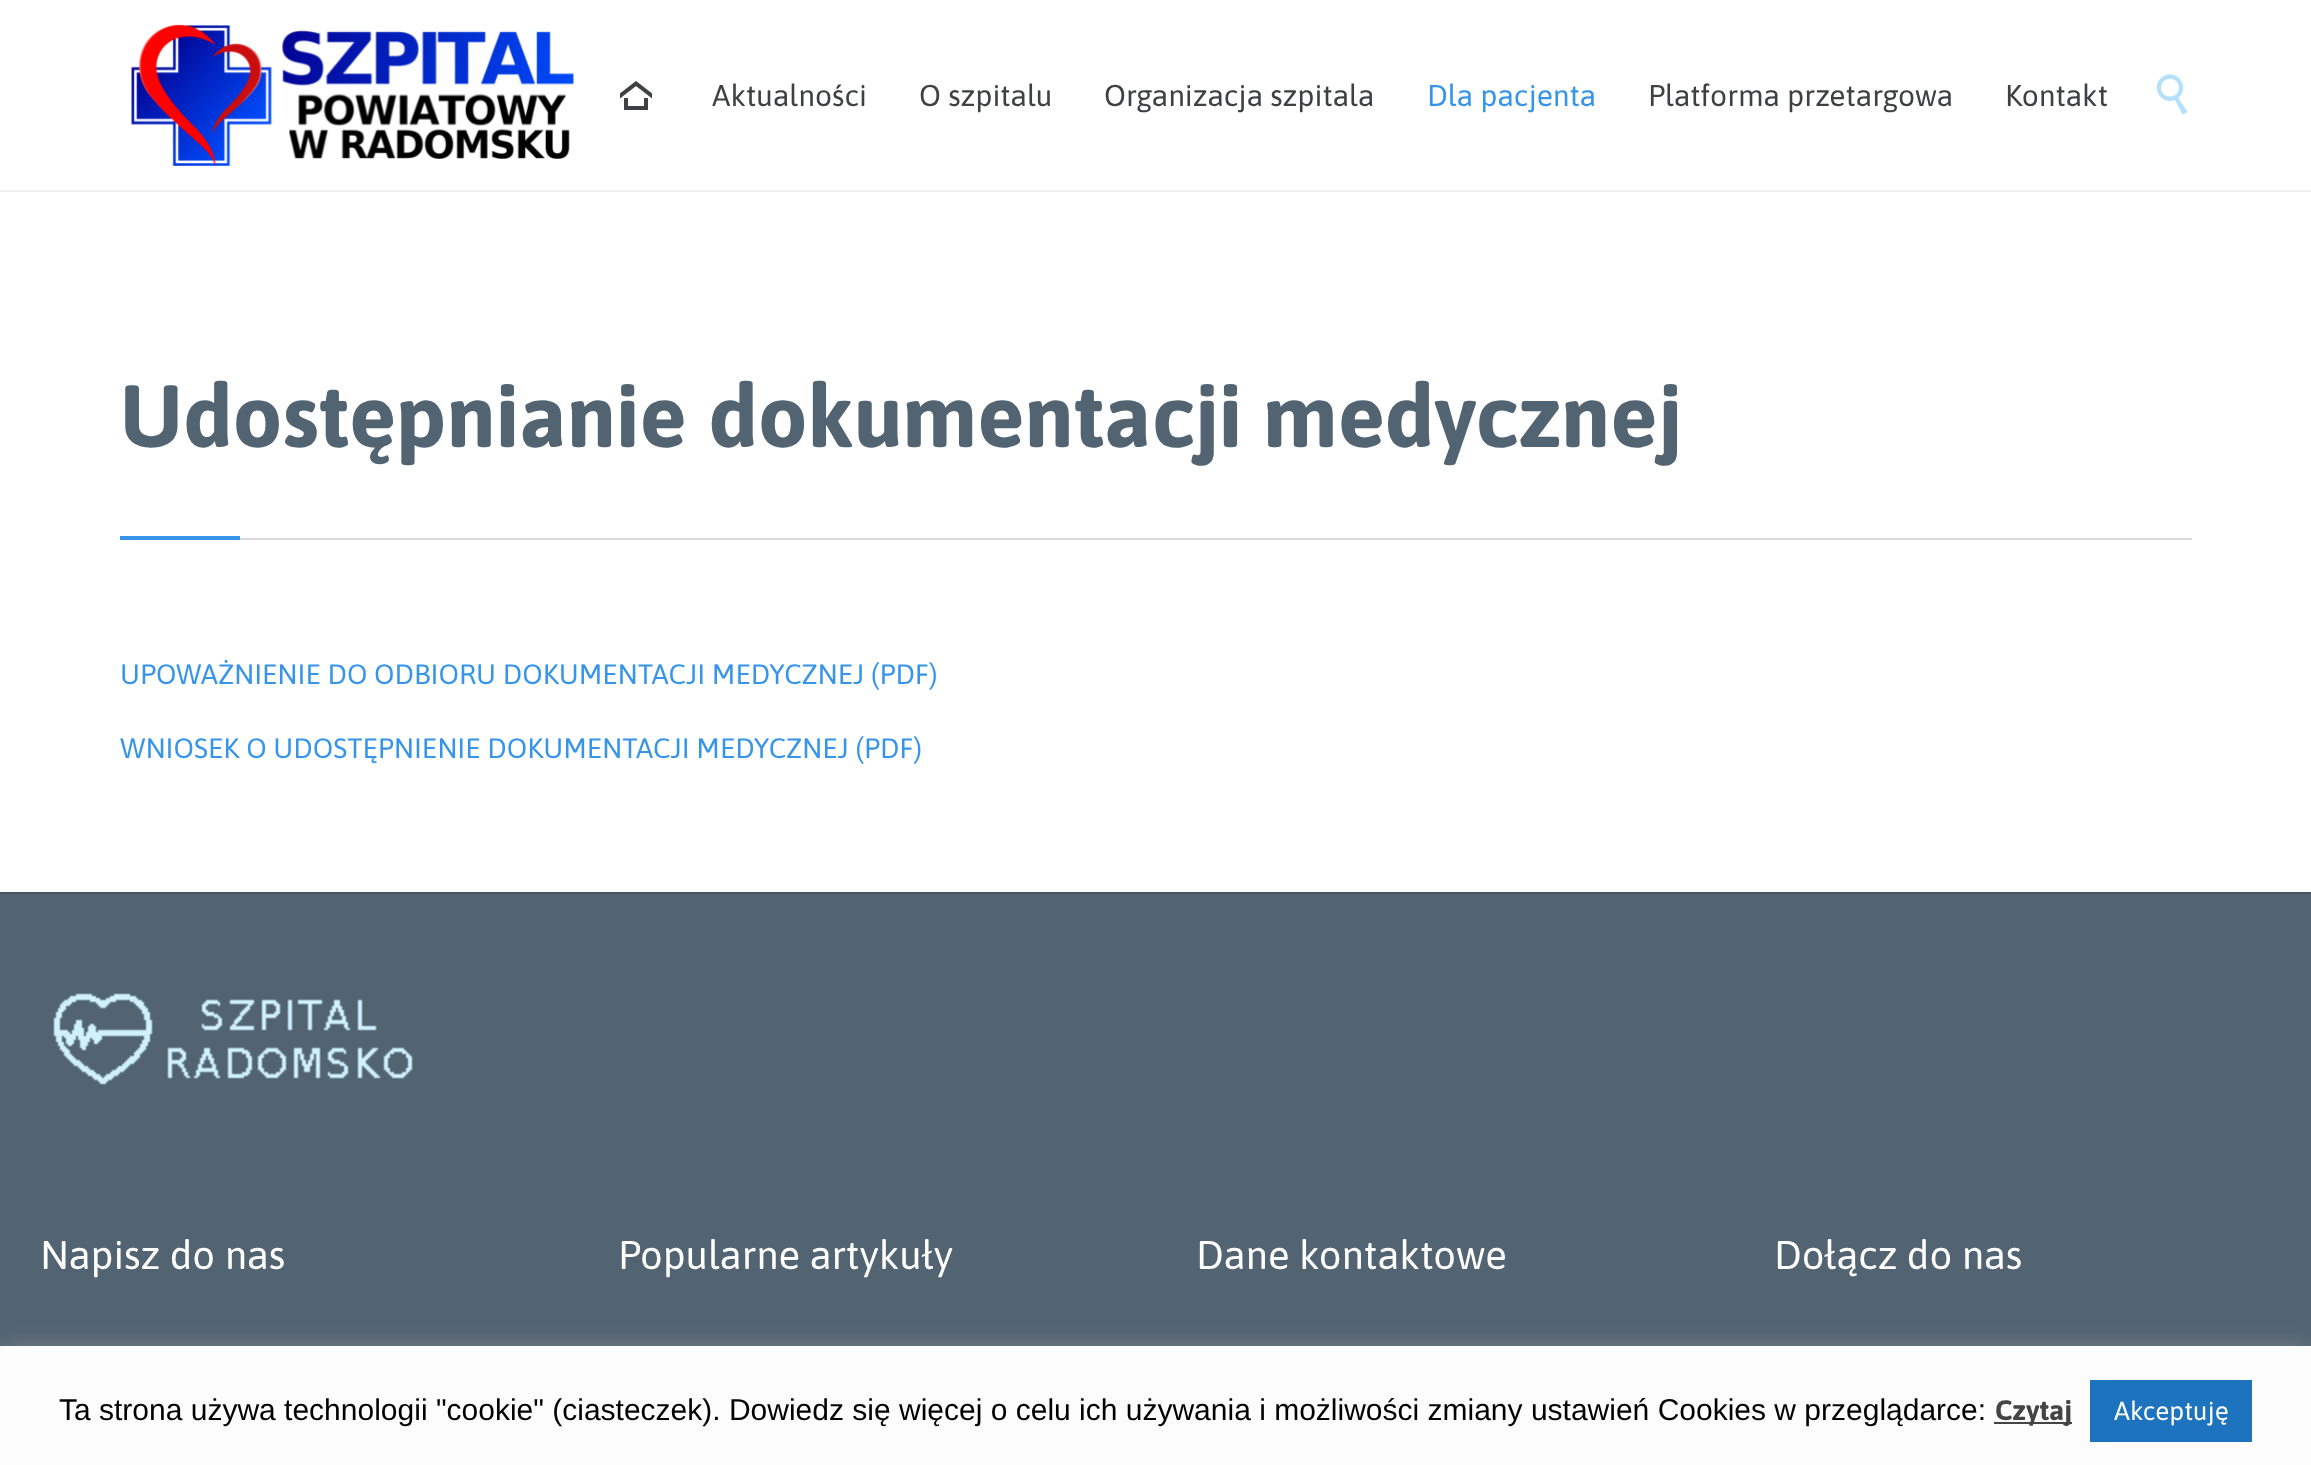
<?xml version="1.0" encoding="UTF-8"?>
<svg xmlns="http://www.w3.org/2000/svg" xmlns:xlink="http://www.w3.org/1999/xlink" width="2311" height="1465">
  <rect width="100%" height="100%" fill="#ffffff" />
  <rect y="190" width="2311" height="2" fill="#f0f0f1" />
  <image x="131" y="24" width="443" height="142" xlink:href="image1.png" />
  <image x="620" y="81" width="32" height="29" xlink:href="image2.png" />
  <image x="2156" y="74" width="32" height="41" xlink:href="image3.png" />
  <rect x="240" y="538" width="1952" height="2" fill="#dadade" />
  <rect x="120" y="536" width="120" height="4" fill="#3695eb" />
  <rect y="894" width="2311" height="452" fill="#526371" />
  <rect y="892" width="2311" height="2" fill="#475662" />
  <image x="53" y="993" width="360" height="92" xlink:href="image4.png" />
  <rect y="1344" width="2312" height="120" fill="#acabab" fill-opacity="0.3" filter="blur(10px)" />
  <rect y="1346" width="2311" height="119" fill="#fcfcfc" />
  <rect x="1994" y="1422" width="78" height="2" fill="#444444" />
  <rect x="2090" y="1380" width="162" height="62" fill="#1e73be" />
  <text x="712" y="106" style="font-family: Asap; font-size: 30px; fill: #3e4043">Aktualności</text>
  <text x="919" y="106" style="font-family: Asap; font-size: 30px; fill: #3e4043">O szpitalu</text>
  <text x="1104" y="106" style="font-family: Asap; font-size: 30px; fill: #3e4043">Organizacja szpitala</text>
  <text x="1427" y="106" style="font-family: Asap; font-size: 30px; fill: #3695eb">Dla pacjenta</text>
  <text x="1648" y="106" style="font-family: Asap; font-size: 30px; fill: #3e4043">Platforma przetargowa</text>
  <text x="2005" y="106" style="font-family: Asap; font-size: 30px; fill: #3e4043">Kontakt</text>
  <text x="120" y="447" style="font-family: Asap; font-size: 88px; font-weight: bold; fill: #526371">Udostępnianie dokumentacji medycznej</text>
  <text x="120" y="684" style="font-family: Asap; font-size: 28px; fill: #3695eb">UPOWAŻNIENIE DO ODBIORU DOKUMENTACJI MEDYCZNEJ (PDF)</text>
  <text x="120" y="758" style="font-family: Asap; font-size: 28px; fill: #3695eb">WNIOSEK O UDOSTĘPNIENIE DOKUMENTACJI MEDYCZNEJ (PDF)</text>
  <text x="40" y="1269" style="font-family: Asap; font-size: 40px; fill: #ffffff">Napisz do nas</text>
  <text x="618" y="1269" style="font-family: Asap; font-size: 40px; fill: #ffffff">Popularne artykuły</text>
  <text x="1196" y="1269" style="font-family: Asap; font-size: 40px; fill: #ffffff">Dane kontaktowe</text>
  <text x="1774" y="1269" style="font-family: Asap; font-size: 40px; fill: #ffffff">Dołącz do nas</text>
  <text x="59" y="1420" style="font-family: Liberation Sans; font-size: 30px; fill: #000000">Ta strona używa technologii "cookie" (ciasteczek). Dowiedz się więcej o celu ich używania i możliwości zmiany ustawień Cookies w przeglądarce:</text>
  <text x="1995" y="1420" style="font-family: Asap; font-size: 28px; font-weight: bold; fill: #444444">Czytaj</text>
  <text x="2114" y="1420" style="font-family: Asap; font-size: 26px; fill: #ffffff">Akceptuję</text>
</svg>
